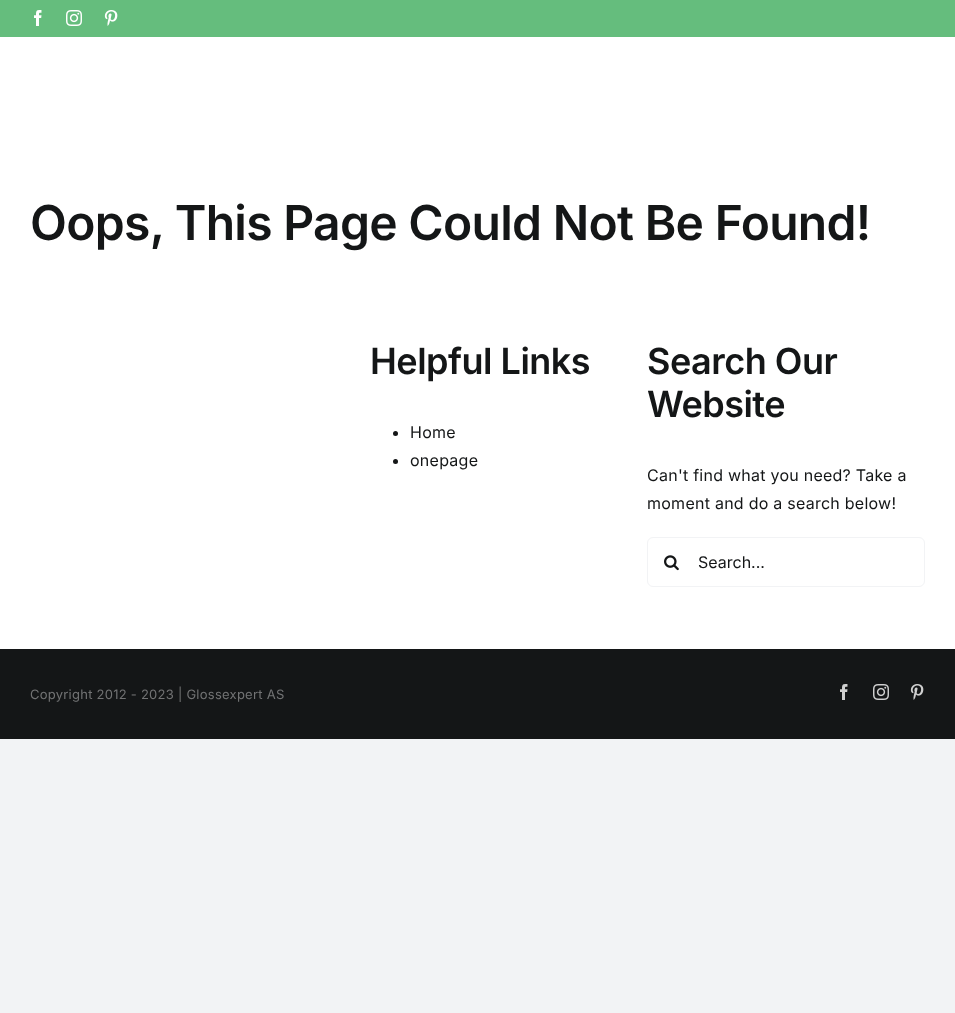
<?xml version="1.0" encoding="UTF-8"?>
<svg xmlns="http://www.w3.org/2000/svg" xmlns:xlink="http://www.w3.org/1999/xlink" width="955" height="1013">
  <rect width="100%" height="100%" fill="#f2f3f5" />
  <rect y="37" width="955" height="612" fill="#ffffff" />
  <rect width="955" height="37" fill="#65bd7d" />
  <image x="34" y="10" width="8" height="16" xlink:href="image1.png" />
  <image x="66" y="10" width="16" height="16" xlink:href="image2.png" />
  <image x="104" y="10" width="14" height="16" xlink:href="image3.png" />
  <circle cx="395.5" cy="433.5" r="2.5" fill="#141617" />
  <circle cx="395.5" cy="461.5" r="2.5" fill="#141617" />
  <rect x="647.5" y="537.5" width="277" height="49" rx="5.5" fill="none" stroke="#f2f3f5" />
  <image x="664" y="555" width="15" height="16" xlink:href="image4.png" />
  <rect y="649" width="955" height="90" fill="#141617" />
  <image x="840" y="684" width="8" height="16" xlink:href="image5.png" />
  <image x="873" y="684" width="16" height="16" xlink:href="image6.png" />
  <image x="910" y="684" width="14" height="16" xlink:href="image7.png" />
  <text x="30" y="240" style="font-family: Inter; font-size: 48px; font-weight: 600; letter-spacing: -0.7px; fill: #141617">Oops, This Page Could Not Be Found!</text>
  <text x="370" y="374" style="font-family: Inter; font-size: 36px; font-weight: 600; letter-spacing: -0.5px; fill: #141617">Helpful Links</text>
  <text x="410" y="438" style="font-family: Inter; font-size: 16px; letter-spacing: 0.25px; fill: #141617">Home</text>
  <text x="410" y="466" style="font-family: Inter; font-size: 16px; letter-spacing: 0.25px; fill: #141617">onepage</text>
  <text x="647" y="374" style="font-family: Inter; font-size: 36px; font-weight: 600; letter-spacing: -0.5px; fill: #141617">Search Our</text>
  <text x="647" y="417" style="font-family: Inter; font-size: 36px; font-weight: 600; letter-spacing: -0.5px; fill: #141617">Website</text>
  <text x="647" y="481" style="font-family: Inter; font-size: 16px; letter-spacing: 0.25px; fill: #141617">Can't find what you need? Take a</text>
  <text x="647" y="509" style="font-family: Inter; font-size: 16px; letter-spacing: 0.25px; fill: #141617">moment and do a search below!</text>
  <text x="698" y="568" style="font-family: Inter; font-size: 16px; fill: #141617">Search...</text>
  <text x="30" y="699" style="font-family: Inter; font-size: 13px; letter-spacing: 0.25px; fill: #727374">Copyright 2012 - 2023 | Glossexpert AS</text>
</svg>
